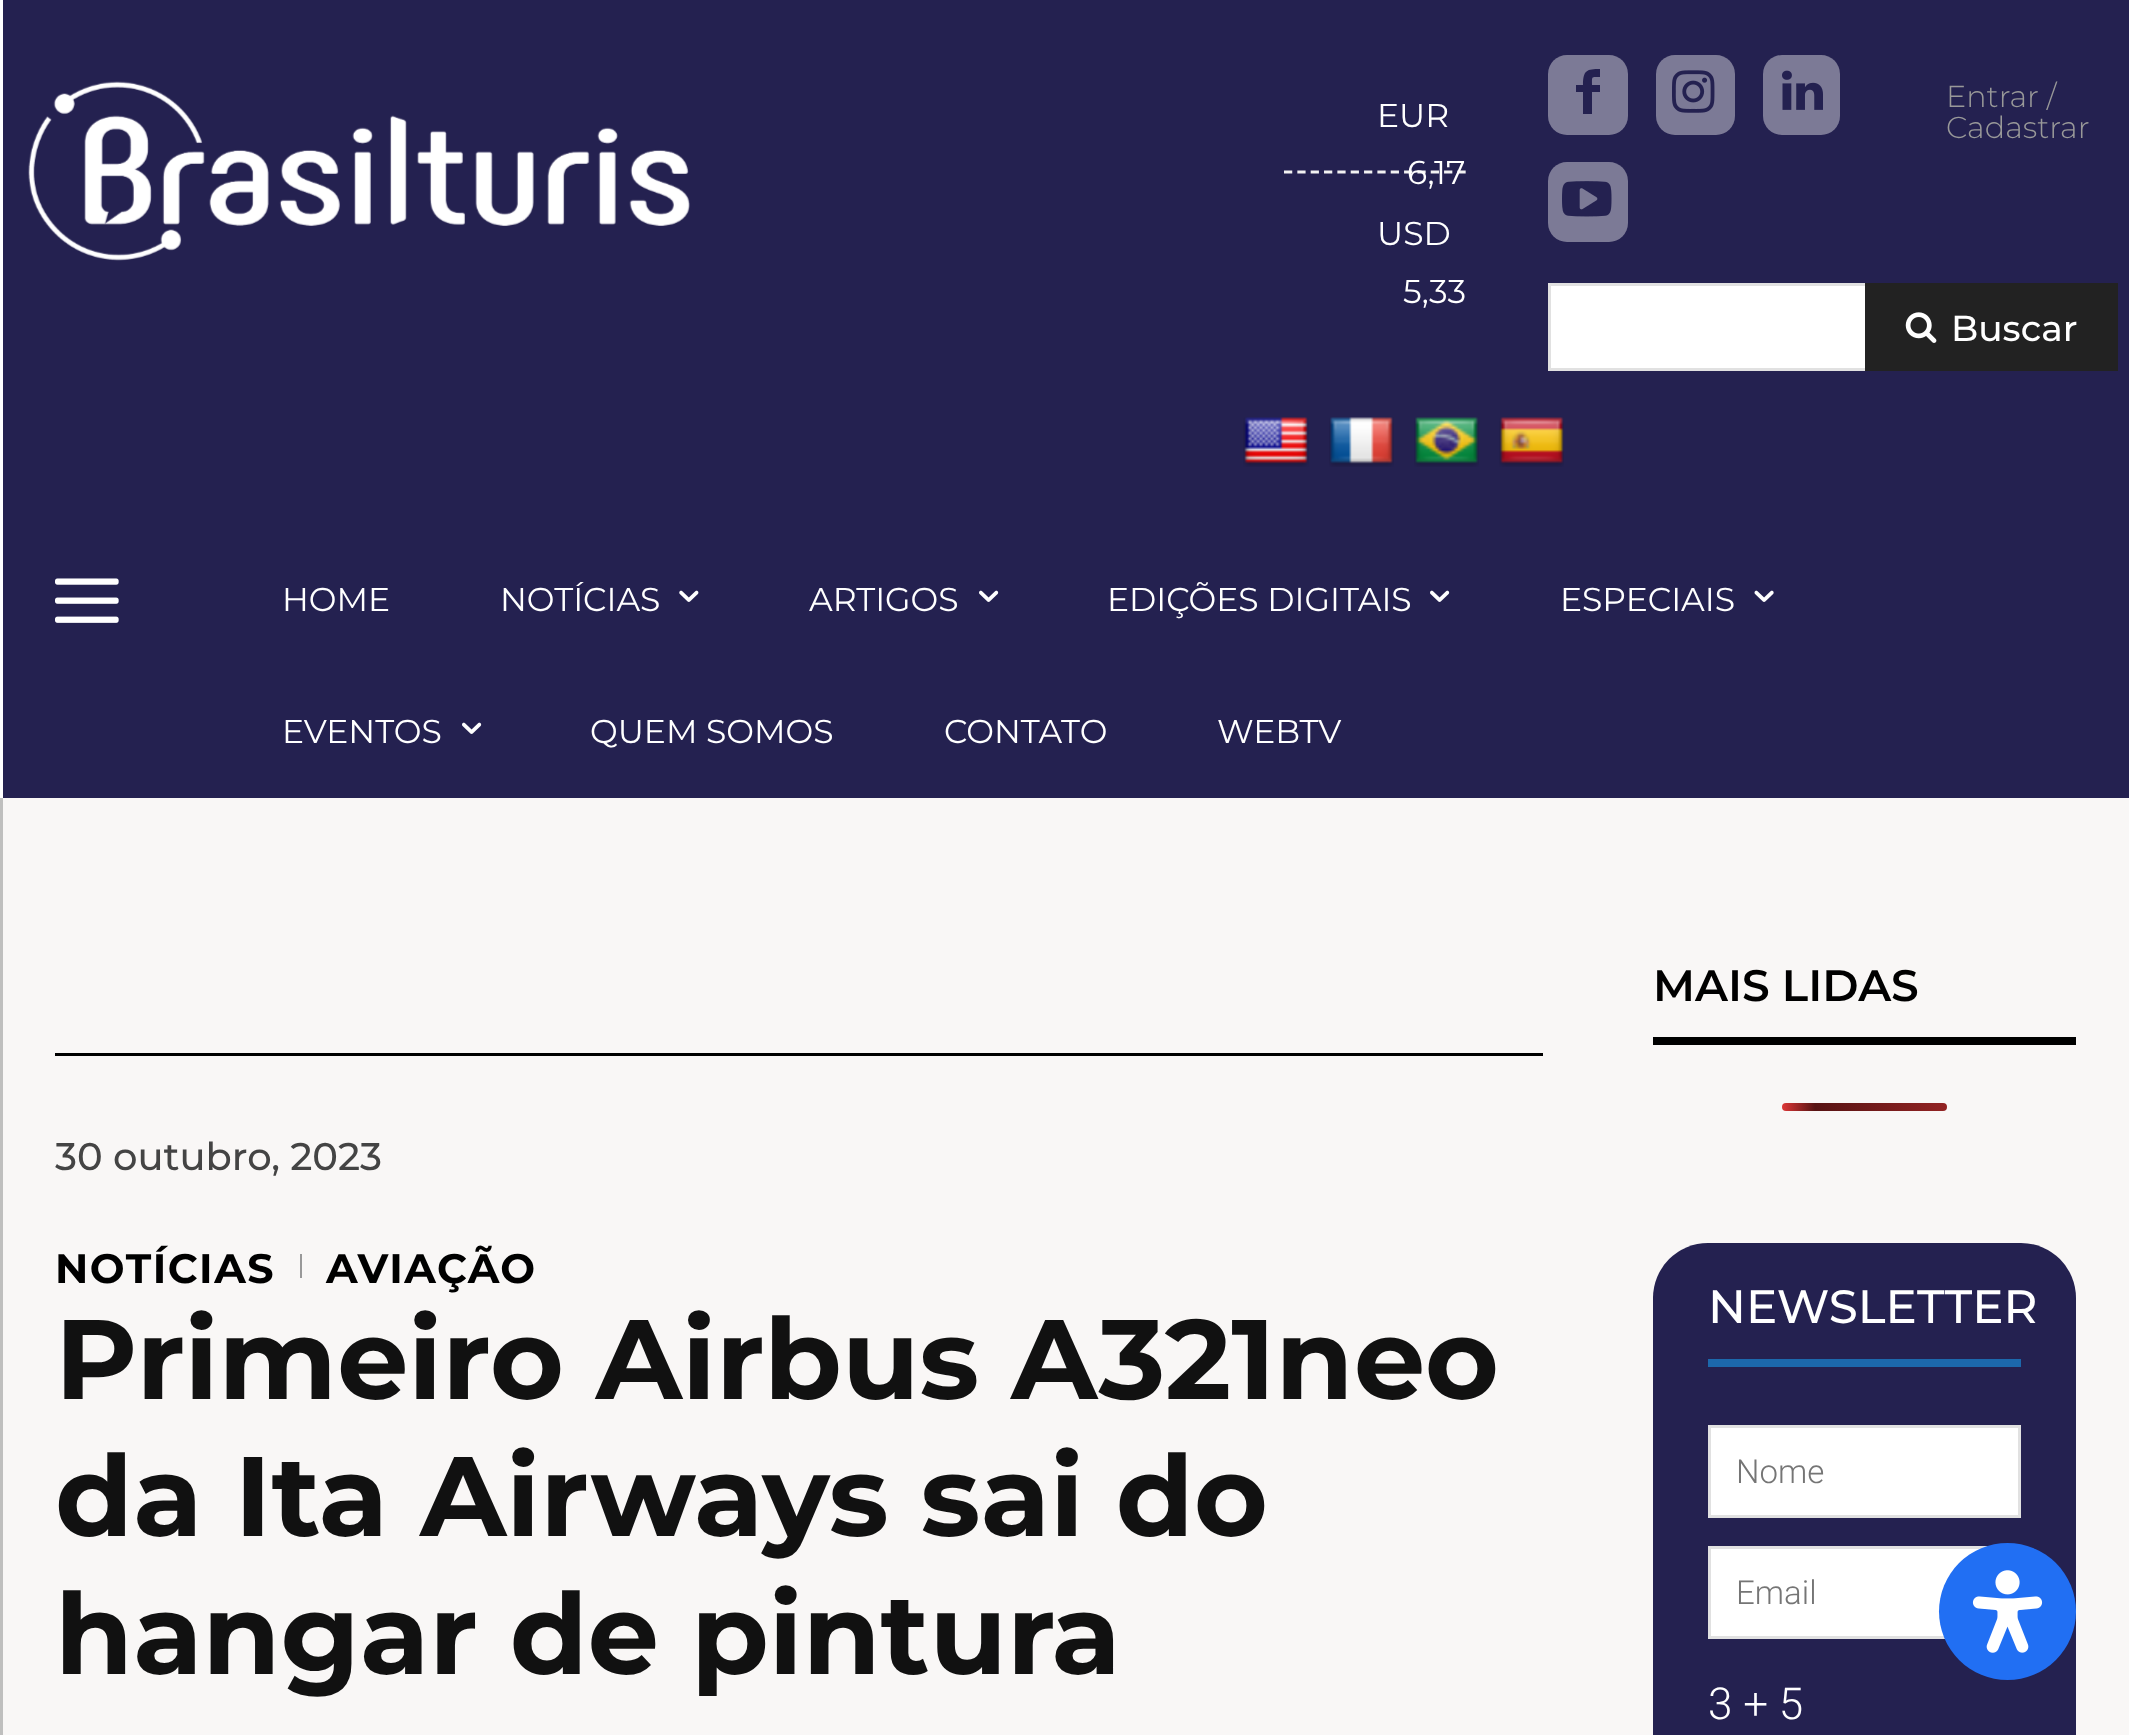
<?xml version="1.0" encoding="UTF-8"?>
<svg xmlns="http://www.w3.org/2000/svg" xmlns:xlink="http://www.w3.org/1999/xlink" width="2129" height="1735">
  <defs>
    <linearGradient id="g1" gradientUnits="userSpaceOnUse" x1="1782" y1="1107" x2="2112" y2="1107"><stop offset="0" stop-color="#dd3737" /><stop offset="0.1" stop-color="#571313" /><stop offset="1" stop-color="#dd3737" /></linearGradient>
  </defs>
  <rect width="100%" height="100%" fill="#ffffff" />
  <rect x="3" width="2126" height="798" fill="#242150" />
  <image x="28" y="81" width="662" height="180" xlink:href="image1.png" />
  <path d="M 1284 172 h 182" fill="none" stroke="#f2f2f2" stroke-width="2.8" stroke-dasharray="8.25 5.09" />
  <image x="1243" y="417" width="66" height="50" xlink:href="image2.png" />
  <image x="1329" y="417" width="65" height="50" xlink:href="image3.png" />
  <image x="1414" y="417" width="65" height="50" xlink:href="image4.png" />
  <image x="1499" y="417" width="65" height="50" xlink:href="image5.png" />
  <rect x="1548" y="55" width="80" height="80" rx="19" fill="#7c7a96" />
  <path d="M 1600 77 c -9 0 -8 -1 -8 8 h 8 v 7 h -8 v 22 h -9 v -22 h -7 v -7 h 7 c 0 -15 4 -16 17 -16 z" fill="#242150" />
  <rect x="1656" y="55" width="79" height="80" rx="19" fill="#7c7a96" />
  <image x="1672" y="70" width="43" height="43" xlink:href="image6.png" />
  <rect x="1763" y="55" width="77" height="80" rx="19" fill="#7c7a96" />
  <image x="1782" y="70" width="41" height="40" xlink:href="image7.png" />
  <rect x="1548" y="162" width="80" height="80" rx="19" fill="#7c7a96" />
  <image x="1562" y="181" width="50" height="36" xlink:href="image8.png" />
  <rect x="1551" y="286" width="314" height="82" fill="#ffffff" />
  <rect x="1549.5" y="284.5" width="567" height="85" fill="none" stroke="#e1e1e1" stroke-width="3" />
  <rect x="1865" y="283" width="253" height="88" fill="#222222" />
  <image x="1905" y="312" width="32" height="31" xlink:href="image9.png" />
  <image x="55" y="578" width="64" height="45" xlink:href="image10.png" />
  <image x="679" y="590" width="20" height="12" xlink:href="image11.png" />
  <image x="979" y="590" width="20" height="12" xlink:href="image12.png" />
  <image x="1430" y="590" width="20" height="12" xlink:href="image12.png" />
  <image x="1754" y="590" width="20" height="12" xlink:href="image13.png" />
  <image x="462" y="722" width="20" height="12" xlink:href="image12.png" />
  <rect y="798" width="3" height="937" fill="#bfbfbe" />
  <rect x="3" y="798" width="2126" height="937" fill="#f9f7f6" />
  <rect x="55" y="1053" width="1488" height="3" fill="#000000" />
  <rect x="300" y="1254" width="2" height="24" fill="#999999" />
  <rect x="1653" y="1037" width="423" height="8" fill="#000000" />
  <rect x="1782" y="1103" width="165" height="8" rx="4" fill="url(#g1)" />
  <rect x="1653" y="1243" width="423" height="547" rx="55" fill="#242150" />
  <rect x="1708" y="1359" width="313" height="8" fill="#1c68ac" />
  <rect x="1709.5" y="1426.5" width="310" height="90" fill="#ffffff" stroke="#e1e1e1" stroke-width="3" />
  <rect x="1711" y="1549" width="269" height="87" fill="#ffffff" />
  <rect x="1709.5" y="1547.5" width="310" height="90" fill="none" stroke="#e1e1e1" stroke-width="3" />
  <circle cx="2007.5" cy="1611.5" r="68.5" fill="#216ff3" />
  <image x="1972" y="1570" width="71" height="83" xlink:href="image14.png" />
  <text x="1377" y="127" style="font-family: Montserrat; font-size: 33px; fill: #ffffff">EUR</text>
  <text x="1407" y="184" style="font-family: Montserrat; font-size: 33px; fill: #ffffff">6,17</text>
  <text x="1377" y="245" style="font-family: Montserrat; font-size: 33px; fill: #ffffff">USD</text>
  <text x="1403" y="303" style="font-family: Montserrat; font-size: 33px; fill: #ffffff">5,33</text>
  <text x="1946" y="107" style="font-family: Montserrat; font-size: 30.25px; font-weight: 300; fill: #999999">Entrar /</text>
  <text x="1946" y="138" style="font-family: Montserrat; font-size: 30.25px; font-weight: 300; fill: #999999">Cadastrar</text>
  <text x="1951" y="341" style="font-family: Montserrat; font-size: 36px; font-weight: 500; fill: #ffffff">Buscar</text>
  <text x="282" y="611" style="font-family: Montserrat; font-size: 33px; fill: #ffffff">HOME</text>
  <text x="500" y="611" style="font-family: Montserrat; font-size: 33px; fill: #ffffff">NOTÍCIAS</text>
  <text x="809" y="611" style="font-family: Montserrat; font-size: 33px; fill: #ffffff">ARTIGOS</text>
  <text x="1107" y="611" style="font-family: Montserrat; font-size: 33px; fill: #ffffff">EDIÇÕES DIGITAIS</text>
  <text x="1560" y="611" style="font-family: Montserrat; font-size: 33px; fill: #ffffff">ESPECIAIS</text>
  <text x="282" y="743" style="font-family: Montserrat; font-size: 33px; fill: #ffffff">EVENTOS</text>
  <text x="590" y="743" style="font-family: Montserrat; font-size: 33px; fill: #ffffff">QUEM SOMOS</text>
  <text x="944" y="743" style="font-family: Montserrat; font-size: 33px; fill: #ffffff">CONTATO</text>
  <text x="1217" y="743" style="font-family: Montserrat; font-size: 33px; fill: #ffffff">WEBTV</text>
  <text x="55" y="1170" style="font-family: Montserrat; font-size: 38.5px; font-weight: 500; fill: #444444">30 outubro, 2023</text>
  <text x="55" y="1283" style="font-family: Montserrat; font-size: 41.25px; font-weight: bold; letter-spacing: 1.5px; fill: #000000">NOTÍCIAS</text>
  <text x="326" y="1283" style="font-family: Montserrat; font-size: 41.25px; font-weight: bold; letter-spacing: 1.5px; fill: #000000">AVIAÇÃO</text>
  <text x="55" y="1399" style="font-family: Montserrat; font-size: 112.75px; font-weight: bold; fill: #111111">Primeiro Airbus A321neo</text>
  <text x="55" y="1536" style="font-family: Montserrat; font-size: 112.75px; font-weight: bold; fill: #111111">da Ita Airways sai do</text>
  <text x="55" y="1674" style="font-family: Montserrat; font-size: 112.75px; font-weight: bold; fill: #111111">hangar de pintura</text>
  <text x="1653" y="1001" style="font-family: Montserrat; font-size: 44px; font-weight: 600; fill: #000000">MAIS LIDAS</text>
  <text x="1708" y="1323" style="font-family: Montserrat; font-size: 46.75px; font-weight: 500; fill: #ffffff">NEWSLETTER</text>
  <text x="1736" y="1483" style="font-family: Roboto; font-size: 33px; font-weight: 300; fill: #757575">Nome</text>
  <text x="1736" y="1604" style="font-family: Roboto; font-size: 33px; font-weight: 300; fill: #757575">Email</text>
  <text x="1708" y="1719" style="font-family: Roboto; font-size: 44px; font-weight: 300; fill: #ffffff">3 + 5</text>
</svg>
